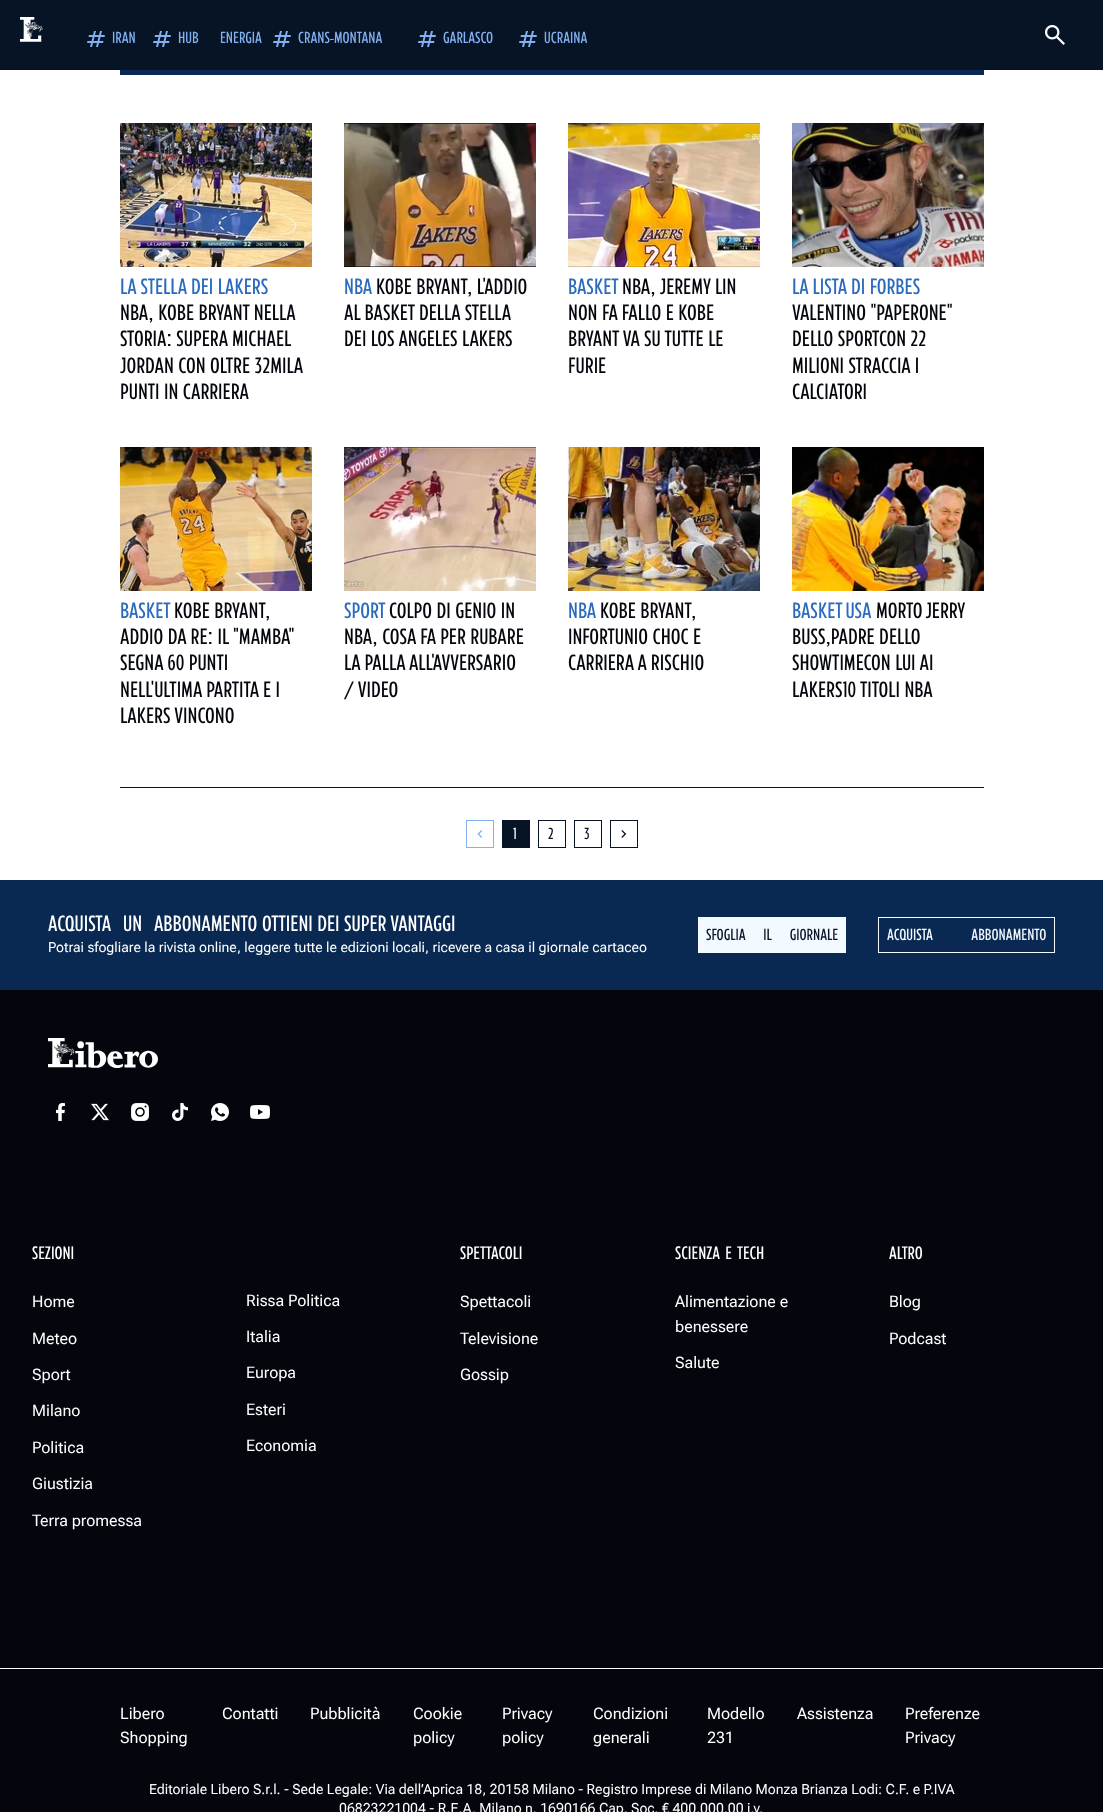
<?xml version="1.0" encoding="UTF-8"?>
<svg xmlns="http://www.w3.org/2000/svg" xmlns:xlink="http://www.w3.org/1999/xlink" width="1103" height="1812">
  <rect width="100%" height="100%" fill="#ffffff" />
  <rect width="1103" height="70" fill="#071425" />
  <image x="20" y="17" width="23" height="25" xlink:href="image1.png" />
  <image x="87" y="31" width="18" height="16" xlink:href="image2.png" />
  <image x="153" y="31" width="18" height="16" xlink:href="image2.png" />
  <image x="273" y="31" width="18" height="16" xlink:href="image2.png" />
  <image x="418" y="31" width="18" height="16" xlink:href="image2.png" />
  <image x="519" y="31" width="18" height="16" xlink:href="image2.png" />
  <image x="1045" y="25" width="20" height="20" xlink:href="image3.png" />
  <rect x="120" y="70" width="864" height="5" fill="#092952" />
  <image x="120" y="123" width="192" height="144" xlink:href="image4.png" />
  <image x="344" y="123" width="192" height="144" xlink:href="image5.png" />
  <image x="568" y="123" width="192" height="144" xlink:href="image6.png" />
  <image x="792" y="123" width="192" height="144" xlink:href="image7.png" />
  <image x="120" y="447" width="192" height="144" xlink:href="image8.png" />
  <image x="344" y="447" width="192" height="144" xlink:href="image9.png" />
  <image x="568" y="447" width="192" height="144" xlink:href="image10.png" />
  <image x="792" y="447" width="192" height="144" xlink:href="image11.png" />
  <rect x="120" y="787" width="864" height="1" fill="#071425" />
  <rect x="466.5" y="820.5" width="27" height="27" fill="none" stroke="#82b0f0" />
  <image x="477" y="830" width="6" height="8" xlink:href="image12.png" />
  <rect x="502" y="820" width="28" height="28" fill="#071425" />
  <rect x="538.5" y="820.5" width="27" height="27" fill="none" stroke="#071425" />
  <rect x="574.5" y="820.5" width="27" height="27" fill="none" stroke="#071425" />
  <rect x="610.5" y="820.5" width="27" height="27" fill="none" stroke="#071425" />
  <image x="621" y="830" width="6" height="8" xlink:href="image13.png" />
  <rect y="880" width="1103" height="110" fill="#092952" />
  <rect x="698" y="917" width="148" height="36" fill="#f2f9ff" />
  <rect x="878.5" y="917.5" width="176" height="35" fill="none" stroke="#f2f9ff" />
  <rect y="990" width="1103" height="678" fill="#03060d" />
  <image x="48" y="1038" width="110" height="30" xlink:href="image14.png" />
  <image x="56" y="1103" width="9" height="18" xlink:href="image15.png" />
  <image x="91" y="1103" width="18" height="18" xlink:href="image16.png" />
  <image x="131" y="1103" width="18" height="18" xlink:href="image17.png" />
  <image x="172" y="1103" width="16" height="18" xlink:href="image18.png" />
  <image x="211" y="1103" width="18" height="18" xlink:href="image19.png" />
  <image x="250" y="1105" width="20" height="14" xlink:href="image20.png" />
  <rect y="1669" width="1103" height="143" fill="#03060d" />
  <text x="112" y="43" style="font-family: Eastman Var; font-size: 16px; font-style: italic; fill: #82b0f0">IRAN</text>
  <text x="178" y="43" word-spacing="18" style="font-family: Eastman Var; font-size: 16px; font-style: italic; fill: #82b0f0">HUB ENERGIA</text>
  <text x="298" y="43" style="font-family: Eastman Var; font-size: 16px; font-style: italic; fill: #82b0f0">CRANS-MONTANA</text>
  <text x="443" y="43" style="font-family: Eastman Var; font-size: 16px; font-style: italic; fill: #82b0f0">GARLASCO</text>
  <text x="544" y="43" style="font-family: Eastman Var; font-size: 16px; font-style: italic; fill: #82b0f0">UCRAINA</text>
  <text x="120" y="294" style="font-family: Eastman Var; font-size: 22px; font-style: italic; fill: #2b6bbd">LA STELLA DEI LAKERS</text>
  <text x="120" y="320" style="font-family: Eastman Var; font-size: 22px; font-style: italic; fill: #03060d">NBA, KOBE BRYANT NELLA</text>
  <text x="120" y="346" style="font-family: Eastman Var; font-size: 22px; font-style: italic; fill: #03060d">STORIA: SUPERA MICHAEL</text>
  <text x="120" y="373" style="font-family: Eastman Var; font-size: 22px; font-style: italic; fill: #03060d">JORDAN CON OLTRE 32MILA</text>
  <text x="120" y="399" style="font-family: Eastman Var; font-size: 22px; font-style: italic; fill: #03060d">PUNTI IN CARRIERA</text>
  <text x="344" y="294" style="font-family: Eastman Var; font-size: 22px; font-style: italic; fill: #2b6bbd">NBA</text>
  <text x="376" y="294" style="font-family: Eastman Var; font-size: 22px; font-style: italic; fill: #03060d">KOBE BRYANT, L'ADDIO</text>
  <text x="344" y="320" style="font-family: Eastman Var; font-size: 22px; font-style: italic; fill: #03060d">AL BASKET DELLA STELLA</text>
  <text x="344" y="346" style="font-family: Eastman Var; font-size: 22px; font-style: italic; fill: #03060d">DEI LOS ANGELES LAKERS</text>
  <text x="568" y="294" style="font-family: Eastman Var; font-size: 22px; font-style: italic; fill: #2b6bbd">BASKET</text>
  <text x="622" y="294" style="font-family: Eastman Var; font-size: 22px; font-style: italic; fill: #03060d">NBA, JEREMY LIN</text>
  <text x="568" y="320" style="font-family: Eastman Var; font-size: 22px; font-style: italic; fill: #03060d">NON FA FALLO E KOBE</text>
  <text x="568" y="346" style="font-family: Eastman Var; font-size: 22px; font-style: italic; fill: #03060d">BRYANT VA SU TUTTE LE</text>
  <text x="568" y="373" style="font-family: Eastman Var; font-size: 22px; font-style: italic; fill: #03060d">FURIE</text>
  <text x="792" y="294" style="font-family: Eastman Var; font-size: 22px; font-style: italic; fill: #2b6bbd">LA LISTA DI FORBES</text>
  <text x="792" y="320" style="font-family: Eastman Var; font-size: 22px; font-style: italic; fill: #03060d">VALENTINO "PAPERONE"</text>
  <text x="792" y="346" style="font-family: Eastman Var; font-size: 22px; font-style: italic; fill: #03060d">DELLO SPORTCON 22</text>
  <text x="792" y="373" style="font-family: Eastman Var; font-size: 22px; font-style: italic; fill: #03060d">MILIONI STRACCIA I</text>
  <text x="792" y="399" style="font-family: Eastman Var; font-size: 22px; font-style: italic; fill: #03060d">CALCIATORI</text>
  <text x="120" y="618" style="font-family: Eastman Var; font-size: 22px; font-style: italic; fill: #2b6bbd">BASKET</text>
  <text x="174" y="618" style="font-family: Eastman Var; font-size: 22px; font-style: italic; fill: #03060d">KOBE BRYANT,</text>
  <text x="120" y="644" style="font-family: Eastman Var; font-size: 22px; font-style: italic; fill: #03060d">ADDIO DA RE: IL "MAMBA"</text>
  <text x="120" y="670" style="font-family: Eastman Var; font-size: 22px; font-style: italic; fill: #03060d">SEGNA 60 PUNTI</text>
  <text x="120" y="697" style="font-family: Eastman Var; font-size: 22px; font-style: italic; fill: #03060d">NELL'ULTIMA PARTITA E I</text>
  <text x="120" y="723" style="font-family: Eastman Var; font-size: 22px; font-style: italic; fill: #03060d">LAKERS VINCONO</text>
  <text x="344" y="618" style="font-family: Eastman Var; font-size: 22px; font-style: italic; fill: #2b6bbd">SPORT</text>
  <text x="389" y="618" style="font-family: Eastman Var; font-size: 22px; font-style: italic; fill: #03060d">COLPO DI GENIO IN</text>
  <text x="344" y="644" style="font-family: Eastman Var; font-size: 22px; font-style: italic; fill: #03060d">NBA, COSA FA PER RUBARE</text>
  <text x="344" y="670" style="font-family: Eastman Var; font-size: 22px; font-style: italic; fill: #03060d">LA PALLA ALL'AVVERSARIO</text>
  <text x="344" y="697" style="font-family: Eastman Var; font-size: 22px; font-style: italic; fill: #03060d">/ VIDEO</text>
  <text x="568" y="618" style="font-family: Eastman Var; font-size: 22px; font-style: italic; fill: #2b6bbd">NBA</text>
  <text x="600" y="618" style="font-family: Eastman Var; font-size: 22px; font-style: italic; fill: #03060d">KOBE BRYANT,</text>
  <text x="568" y="644" style="font-family: Eastman Var; font-size: 22px; font-style: italic; fill: #03060d">INFORTUNIO CHOC E</text>
  <text x="568" y="670" style="font-family: Eastman Var; font-size: 22px; font-style: italic; fill: #03060d">CARRIERA A RISCHIO</text>
  <text x="792" y="618" word-spacing="-1" style="font-family: Eastman Var; font-size: 22px; font-style: italic; fill: #2b6bbd">BASKET USA</text>
  <text x="876" y="618" word-spacing="-1" style="font-family: Eastman Var; font-size: 22px; font-style: italic; fill: #03060d">MORTO JERRY</text>
  <text x="792" y="644" style="font-family: Eastman Var; font-size: 22px; font-style: italic; fill: #03060d">BUSS,PADRE DELLO</text>
  <text x="792" y="670" style="font-family: Eastman Var; font-size: 22px; font-style: italic; fill: #03060d">SHOWTIMECON LUI AI</text>
  <text x="792" y="697" style="font-family: Eastman Var; font-size: 22px; font-style: italic; fill: #03060d">LAKERS10 TITOLI NBA</text>
  <text x="513" y="839" style="font-family: Eastman Var; font-size: 16px; font-style: italic; fill: #f2f9ff">1</text>
  <text x="548" y="839" style="font-family: Eastman Var; font-size: 16px; font-style: italic; fill: #071425">2</text>
  <text x="584" y="839" style="font-family: Eastman Var; font-size: 16px; font-style: italic; fill: #071425">3</text>
  <text x="48" y="931" word-spacing="8" style="font-family: Eastman Var; font-size: 22px; font-style: italic; fill: #ffffff">ACQUISTA UN ABBONAMENTO</text>
  <text x="262" y="931" style="font-family: Eastman Var; font-size: 22px; font-style: italic; fill: #ffffff">OTTIENI DEI SUPER VANTAGGI</text>
  <text x="48" y="952" style="font-family: Roboto Flex; font-size: 14px; fill: #ffffff">Potrai sfogliare la rivista online, leggere tutte le edizioni locali, ricevere a casa il giornale cartaceo</text>
  <text x="706" y="940" word-spacing="15" style="font-family: Eastman Var; font-size: 16px; font-style: italic; fill: #071425">SFOGLIA IL GIORNALE</text>
  <text x="887" y="940" word-spacing="36" style="font-family: Eastman Var; font-size: 16px; font-style: italic; fill: #f2f9ff">ACQUISTA ABBONAMENTO</text>
  <text x="32" y="1259" style="font-family: Eastman Var; font-size: 18px; font-style: italic; fill: #ffffff">SEZIONI</text>
  <text x="32" y="1307" style="font-family: Roboto Flex; font-size: 16px; fill: #ffffff">Home</text>
  <text x="32" y="1344" style="font-family: Roboto Flex; font-size: 16px; fill: #ffffff">Meteo</text>
  <text x="32" y="1380" style="font-family: Roboto Flex; font-size: 16px; fill: #ffffff">Sport</text>
  <text x="32" y="1416" style="font-family: Roboto Flex; font-size: 16px; fill: #ffffff">Milano</text>
  <text x="32" y="1453" style="font-family: Roboto Flex; font-size: 16px; fill: #ffffff">Politica</text>
  <text x="32" y="1489" style="font-family: Roboto Flex; font-size: 16px; fill: #ffffff">Giustizia</text>
  <text x="32" y="1526" style="font-family: Roboto Flex; font-size: 16px; fill: #ffffff">Terra promessa</text>
  <text x="246" y="1306" style="font-family: Roboto Flex; font-size: 16px; fill: #ffffff">Rissa Politica</text>
  <text x="246" y="1342" style="font-family: Roboto Flex; font-size: 16px; fill: #ffffff">Italia</text>
  <text x="246" y="1378" style="font-family: Roboto Flex; font-size: 16px; fill: #ffffff">Europa</text>
  <text x="246" y="1415" style="font-family: Roboto Flex; font-size: 16px; fill: #ffffff">Esteri</text>
  <text x="246" y="1451" style="font-family: Roboto Flex; font-size: 16px; fill: #ffffff">Economia</text>
  <text x="460" y="1259" style="font-family: Eastman Var; font-size: 18px; font-style: italic; fill: #ffffff">SPETTACOLI</text>
  <text x="460" y="1307" style="font-family: Roboto Flex; font-size: 16px; fill: #ffffff">Spettacoli</text>
  <text x="460" y="1344" style="font-family: Roboto Flex; font-size: 16px; fill: #ffffff">Televisione</text>
  <text x="460" y="1380" style="font-family: Roboto Flex; font-size: 16px; fill: #ffffff">Gossip</text>
  <text x="675" y="1259" word-spacing="2" style="font-family: Eastman Var; font-size: 18px; font-style: italic; fill: #ffffff">SCIENZA E TECH</text>
  <text x="675" y="1307" style="font-family: Roboto Flex; font-size: 16px; fill: #ffffff">Alimentazione e</text>
  <text x="675" y="1332" style="font-family: Roboto Flex; font-size: 16px; fill: #ffffff">benessere</text>
  <text x="675" y="1368" style="font-family: Roboto Flex; font-size: 16px; fill: #ffffff">Salute</text>
  <text x="889" y="1259" style="font-family: Eastman Var; font-size: 18px; font-style: italic; fill: #ffffff">ALTRO</text>
  <text x="889" y="1307" style="font-family: Roboto Flex; font-size: 16px; fill: #ffffff">Blog</text>
  <text x="889" y="1344" style="font-family: Roboto Flex; font-size: 16px; fill: #ffffff">Podcast</text>
  <text x="120" y="1719" style="font-family: Roboto Flex; font-size: 16px; fill: #ffffff">Libero</text>
  <text x="120" y="1743" style="font-family: Roboto Flex; font-size: 16px; fill: #ffffff">Shopping</text>
  <text x="222" y="1719" style="font-family: Roboto Flex; font-size: 16px; fill: #ffffff">Contatti</text>
  <text x="310" y="1719" style="font-family: Roboto Flex; font-size: 16px; fill: #ffffff">Pubblicità</text>
  <text x="413" y="1719" style="font-family: Roboto Flex; font-size: 16px; fill: #ffffff">Cookie</text>
  <text x="413" y="1743" style="font-family: Roboto Flex; font-size: 16px; fill: #ffffff">policy</text>
  <text x="502" y="1719" style="font-family: Roboto Flex; font-size: 16px; fill: #ffffff">Privacy</text>
  <text x="502" y="1743" style="font-family: Roboto Flex; font-size: 16px; fill: #ffffff">policy</text>
  <text x="593" y="1719" style="font-family: Roboto Flex; font-size: 16px; fill: #ffffff">Condizioni</text>
  <text x="593" y="1743" style="font-family: Roboto Flex; font-size: 16px; fill: #ffffff">generali</text>
  <text x="707" y="1719" style="font-family: Roboto Flex; font-size: 16px; fill: #ffffff">Modello</text>
  <text x="707" y="1743" style="font-family: Roboto Flex; font-size: 16px; fill: #ffffff">231</text>
  <text x="797" y="1719" style="font-family: Roboto Flex; font-size: 16px; fill: #ffffff">Assistenza</text>
  <text x="905" y="1719" style="font-family: Roboto Flex; font-size: 16px; fill: #ffffff">Preferenze</text>
  <text x="905" y="1743" style="font-family: Roboto Flex; font-size: 16px; fill: #ffffff">Privacy</text>
  <text x="149" y="1794" style="font-family: Roboto Flex; font-size: 14px; fill: #ffffff">Editoriale Libero S.r.l. - Sede Legale: Via dell’Aprica 18, 20158 Milano - Registro Imprese di Milano Monza Brianza Lodi: C.F. e P.IVA</text>
  <text x="339" y="1813" style="font-family: Roboto Flex; font-size: 14px; fill: #ffffff">06823221004 - R.E.A. Milano n. 1690166 Cap. Soc. € 400.000,00 i.v.</text>
</svg>
